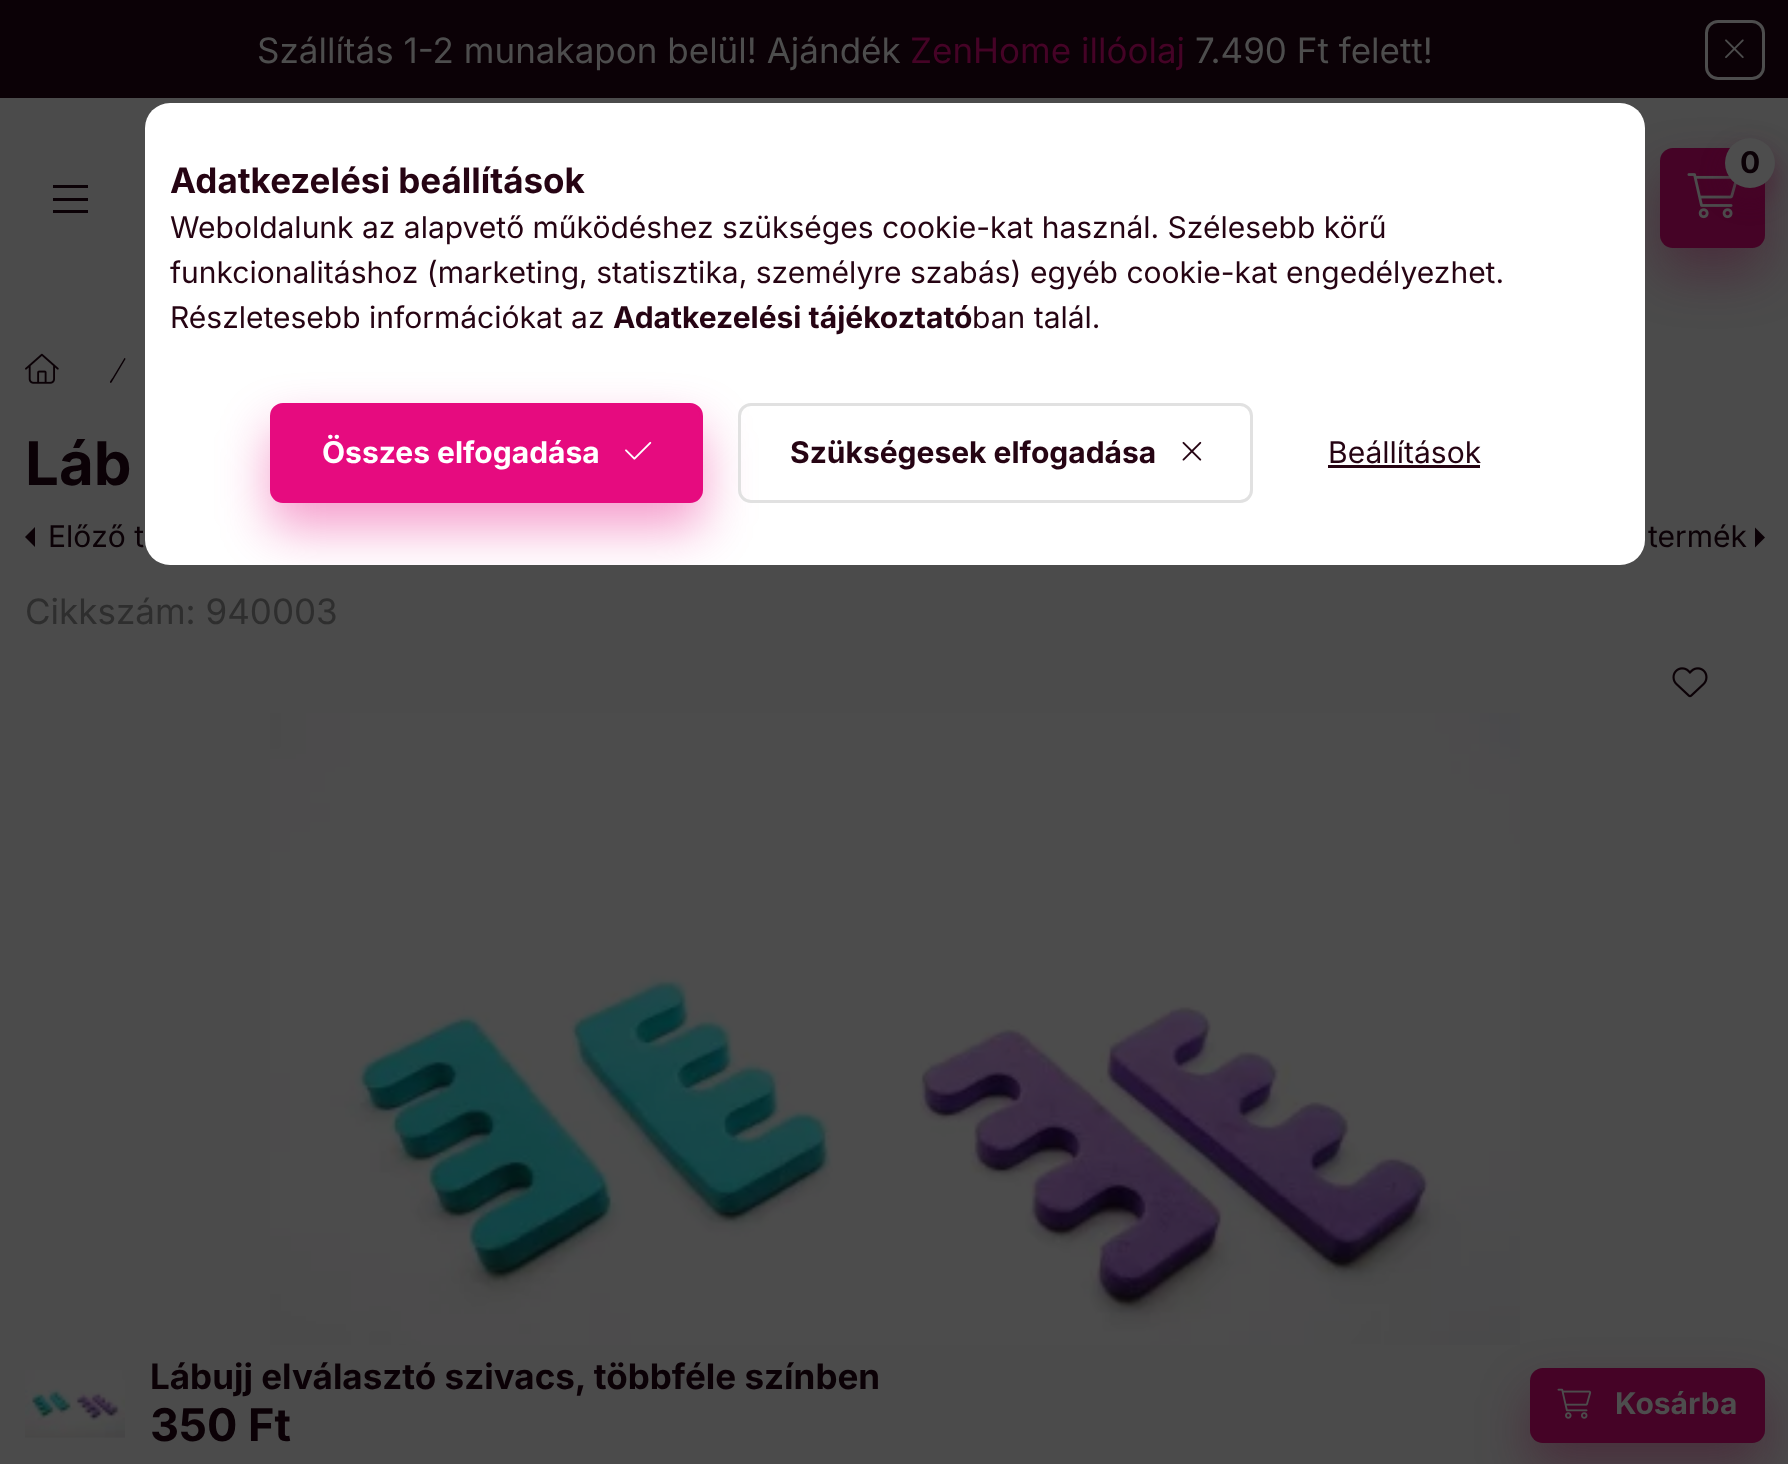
<?xml version="1.0" encoding="UTF-8"?>
<svg xmlns="http://www.w3.org/2000/svg" xmlns:xlink="http://www.w3.org/1999/xlink" width="1788" height="1464">
  <defs>
    <clipPath id="clip1"><rect x="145" y="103" width="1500" height="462" rx="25" /></clipPath>
  </defs>
  <rect width="100%" height="100%" fill="#4b4b4b" />
  <rect x="1660" y="173" width="105" height="100" rx="13" fill="#450326" fill-opacity="0.4" filter="blur(25px)" />
  <rect width="1788" height="98" fill="#0b0106" />
  <rect x="1706.5" y="21.5" width="57" height="57" rx="11.5" fill="none" stroke="#4d4d4d" stroke-width="3" />
  <image x="1725" y="39" width="19" height="20" xlink:href="image1.png" />
  <rect x="1660" y="148" width="105" height="100" rx="13" fill="#450326" />
  <image x="1687" y="173" width="50" height="46" xlink:href="image2.png" />
  <rect x="1725" y="150" width="50" height="50" rx="25" fill="#450326" fill-opacity="0.4" filter="blur(12.5px)" />
  <circle cx="1750" cy="163" r="25" fill="#4d4d4d" />
  <rect x="53" y="185" width="35" height="3" fill="#0b0106" />
  <rect x="53" y="198" width="35" height="3" fill="#0b0106" />
  <rect x="53" y="210" width="35" height="3" fill="#0b0106" />
  <image x="25" y="353" width="34" height="31" xlink:href="image3.png" />
  <path d="M 125 358 h -0.5 l -12 20 c -1 1.5 -3.5 4 -2 5 l 1 -0.5 l 14 -23.5 z" fill="#0b0106" />
  <path d="M 35 547 v -20 l -10 10 z" fill="#0b0106" />
  <path d="M 1755 547.5 v -20 l 10 10 z" fill="#0b0106" />
  <image x="1672" y="667" width="36" height="31" xlink:href="image4.png" />
  <image x="270" y="713" width="1250" height="632" xlink:href="image5.png" />
  <image x="25" y="1370" width="100" height="68" xlink:href="image6.png" />
  <rect x="1530" y="1393" width="235" height="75" rx="13" fill="#450326" fill-opacity="0.4" filter="blur(25px)" />
  <rect x="1530" y="1368" width="235" height="75" rx="13" fill="#450326" />
  <image x="1557" y="1388" width="35" height="31" xlink:href="image7.png" />
  <rect x="145" y="103" width="1500" height="462" rx="25" fill="#ffffff" />
  <g clip-path="url(#clip1)">
    <rect x="270" y="428" width="433" height="100" rx="13" fill="#e60b7f" fill-opacity="0.4" filter="blur(25px)" />
  </g>
  <rect x="271.5" y="404.5" width="430" height="97" rx="11.5" fill="#e60b7f" stroke="#e60b7f" stroke-width="3" />
  <image x="625" y="441" width="27" height="19" xlink:href="image8.png" />
  <rect x="739.5" y="404.5" width="512" height="97" rx="11.5" fill="none" stroke="#e1e1e1" stroke-width="3" />
  <image x="1182" y="441" width="20" height="20" xlink:href="image9.png" />
  <rect x="1328" y="465" width="152" height="3" fill="#260413" />
  <text x="257" y="63" style="font-family: Inter; font-size: 35px; fill: #4d4d4d">Szállítás 1-2 munakapon belül! Ajándék</text>
  <text x="910" y="63" style="font-family: Inter; font-size: 35px; fill: #450326">ZenHome illóolaj</text>
  <text x="1195" y="63" style="font-family: Inter; font-size: 35px; fill: #4d4d4d">7.490 Ft felett!</text>
  <text x="1740" y="173" style="font-family: Inter; font-size: 30px; font-weight: bold; fill: #0b0106">0</text>
  <text x="25" y="485" style="font-family: Inter; font-size: 60px; font-weight: bold; fill: #0b0106">Láb</text>
  <text x="48" y="547" style="font-family: Inter; font-size: 30px; fill: #0b0106">Előző t</text>
  <text x="1648" y="547" style="font-family: Inter; font-size: 30px; fill: #0b0106">termék</text>
  <text x="25" y="624" style="font-family: Inter; font-size: 35px; fill: #2e2e2e">Cikkszám: 940003</text>
  <text x="150" y="1389" style="font-family: Inter; font-size: 35px; font-weight: bold; fill: #0b0106">Lábujj elválasztó szivacs, többféle színben</text>
  <text x="150" y="1441" style="font-family: Inter; font-size: 45px; font-weight: bold; fill: #0b0106">350 Ft</text>
  <text x="1615" y="1414" style="font-family: Inter; font-size: 30px; font-weight: bold; fill: #4d4d4d">Kosárba</text>
  <text x="170" y="193" style="font-family: Inter; font-size: 35px; font-weight: bold; fill: #260413">Adatkezelési beállítások</text>
  <text x="170" y="238" style="font-family: Inter; font-size: 30px; fill: #260413">Weboldalunk az alapvető működéshez szükséges cookie-kat használ. Szélesebb körű</text>
  <text x="170" y="283" style="font-family: Inter; font-size: 30px; fill: #260413">funkcionalitáshoz (marketing, statisztika, személyre szabás) egyéb cookie-kat engedélyezhet.</text>
  <text x="170" y="328" style="font-family: Inter; font-size: 30px; fill: #260413">Részletesebb információkat az</text>
  <text x="613" y="328" style="font-family: Inter; font-size: 30px; font-weight: bold; fill: #260413">Adatkezelési tájékoztató</text>
  <text x="972" y="328" style="font-family: Inter; font-size: 30px; fill: #260413">ban talál.</text>
  <text x="322" y="463" style="font-family: Inter; font-size: 30px; font-weight: bold; fill: #ffffff">Összes elfogadása</text>
  <text x="790" y="463" style="font-family: Inter; font-size: 30px; font-weight: bold; fill: #260413">Szükségesek elfogadása</text>
  <text x="1328" y="463" style="font-family: Inter; font-size: 30px; fill: #260413">Beállítások</text>
</svg>
